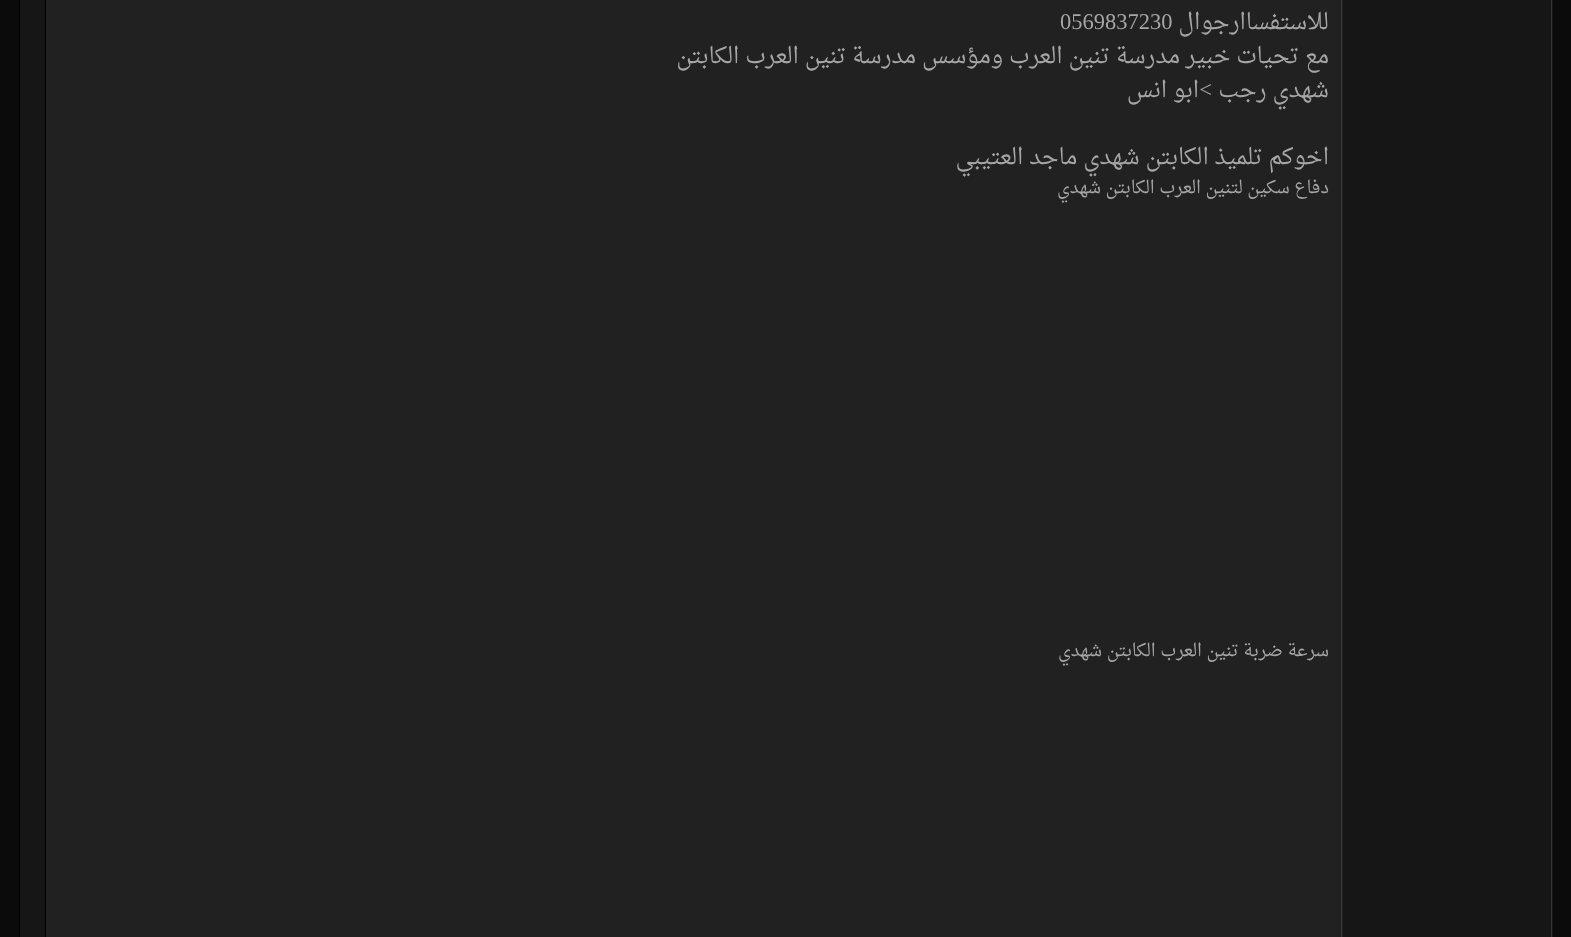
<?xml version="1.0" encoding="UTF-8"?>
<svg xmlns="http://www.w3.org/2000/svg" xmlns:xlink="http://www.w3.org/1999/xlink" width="1571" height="937">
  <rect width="100%" height="100%" fill="#0b0b0b" />
  <rect x="20" width="1533" height="937" fill="#161616" />
  <rect x="1551" width="1" height="937" fill="#373737" />
  <rect x="19" width="1" height="937" fill="#000000" />
  <rect x="46" width="1297" height="937" fill="#212121" />
  <rect x="1341" width="1" height="937" fill="#373737" />
  <rect x="45" width="1" height="937" fill="#000000" />
  <text x="1329" y="29" style="font-family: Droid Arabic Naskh; font-size: 22.5px; direction: rtl; fill: #a6a6a6">للاستفساارجوال</text>
  <text x="1060" y="29" style="font-family: Liberation Serif; font-size: 22.5px; fill: #a6a6a6">0569837230</text>
  <text x="1329" y="63" style="font-family: Droid Arabic Naskh; font-size: 22.5px; direction: rtl; fill: #a6a6a6">مع تحيات خبير مدرسة تنين العرب ومؤسس مدرسة تنين العرب الكابتن</text>
  <text x="1329" y="97" style="font-family: Droid Arabic Naskh; font-size: 22.5px; direction: rtl; fill: #a6a6a6">شهدي رجب</text>
  <text x="1212" y="97" style="font-family: Liberation Serif; font-size: 22.5px; direction: rtl; fill: #a6a6a6">&gt;</text>
  <text x="1199" y="97" style="font-family: Droid Arabic Naskh; font-size: 22.5px; direction: rtl; fill: #a6a6a6">ابو انس</text>
  <text x="1329" y="164" style="font-family: Droid Arabic Naskh; font-size: 22.5px; direction: rtl; fill: #a6a6a6">اخوكم تلميذ الكابتن شهدي ماجد العتيبي</text>
  <text x="1329" y="193" style="font-family: Droid Arabic Naskh; font-size: 17.5px; direction: rtl; fill: #a6a6a6">دفاع سكين لتنين العرب الكابتن شهدي</text>
  <text x="1329" y="656" style="font-family: Droid Arabic Naskh; font-size: 17.5px; direction: rtl; fill: #a6a6a6">سرعة ضربة تنين العرب الكابتن شهدي</text>
</svg>
